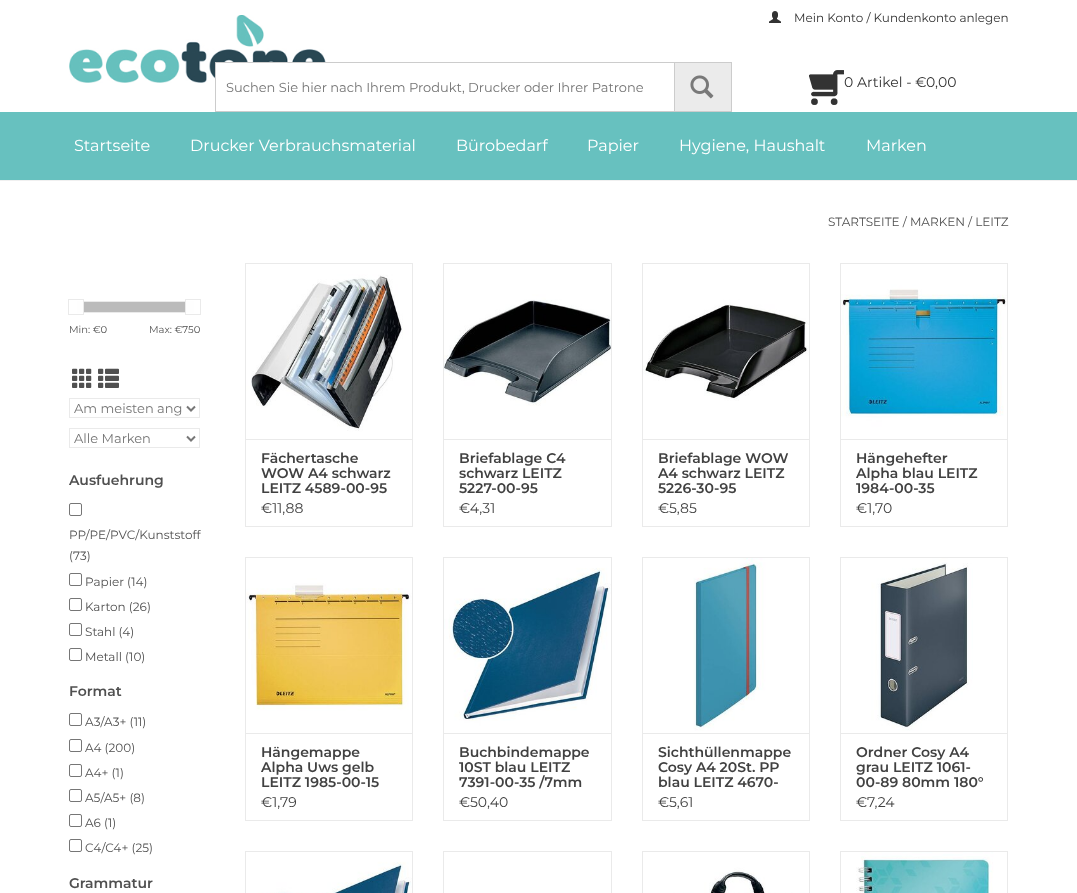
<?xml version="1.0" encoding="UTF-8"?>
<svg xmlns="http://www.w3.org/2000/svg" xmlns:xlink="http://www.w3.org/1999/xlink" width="1077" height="893">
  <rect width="100%" height="100%" fill="#ffffff" />
  <rect y="180" width="1077" height="1" fill="#f0f0f0" />
  <image x="769" y="11" width="12" height="12" xlink:href="image1.png" />
  <image x="69" y="15" width="257" height="68" xlink:href="image2.png" />
  <rect x="216" y="63" width="110" height="20" fill="#ffffff" />
  <rect x="215.5" y="62.5" width="459" height="49" fill="none" stroke="#cccccc" />
  <rect x="674.5" y="62.5" width="57" height="49" fill="#ebebeb" stroke="#cccccc" />
  <image x="690" y="75" width="24" height="24" xlink:href="image3.png" />
  <image x="809" y="70" width="35" height="35" xlink:href="image4.png" />
  <rect y="112" width="1077" height="68" fill="#67c1bf" />
  <rect x="84" y="302" width="101" height="10" fill="#bbbbbb" />
  <rect x="77.5" y="301.5" width="116" height="11" fill="none" stroke="#eaeaea" />
  <rect x="77" y="301" width="6" height="12" fill="#fefefe" />
  <rect x="68.5" y="299.5" width="15" height="15" fill="none" stroke="#eaeaea" />
  <rect x="186" y="301" width="8" height="12" fill="#fefefe" />
  <rect x="185.5" y="299.5" width="15" height="15" fill="none" stroke="#eaeaea" />
  <image x="72" y="368" width="20" height="20" xlink:href="image5.png" />
  <image x="98" y="368" width="21" height="20" xlink:href="image6.png" />
  <rect x="69.5" y="398.5" width="130" height="19" fill="none" stroke="#eaeaea" />
  <path d="M 187 406.5 l 4 4 l 4 -4" fill="none" stroke="#777777" stroke-width="2" />
  <rect x="69.5" y="428.5" width="130" height="19" fill="none" stroke="#eaeaea" />
  <path d="M 187 436.5 l 4 4 l 4 -4" fill="none" stroke="#777777" stroke-width="2" />
  <rect x="69.5" y="503.5" width="12" height="12" rx="1.5" fill="none" stroke="#767676" />
  <rect x="69.5" y="573.5" width="12" height="12" rx="1.5" fill="none" stroke="#767676" />
  <rect x="69.5" y="598.5" width="12" height="12" rx="1.5" fill="none" stroke="#767676" />
  <rect x="69.5" y="623.5" width="12" height="12" rx="1.5" fill="none" stroke="#767676" />
  <rect x="69.5" y="648.5" width="12" height="12" rx="1.5" fill="none" stroke="#767676" />
  <rect x="69.5" y="713.5" width="12" height="12" rx="1.5" fill="none" stroke="#767676" />
  <rect x="69.5" y="739.5" width="12" height="12" rx="1.5" fill="none" stroke="#767676" />
  <rect x="69.5" y="764.5" width="12" height="12" rx="1.5" fill="none" stroke="#767676" />
  <rect x="69.5" y="789.5" width="12" height="12" rx="1.5" fill="none" stroke="#767676" />
  <rect x="69.5" y="814.5" width="12" height="12" rx="1.5" fill="none" stroke="#767676" />
  <rect x="69.5" y="839.5" width="12" height="12" rx="1.5" fill="none" stroke="#767676" />
  <rect x="245" y="263" width="168" height="1" fill="#eaeaea" />
  <rect x="412" y="263" width="1" height="176" fill="#eaeaea" />
  <rect x="245" y="263" width="1" height="176" fill="#eaeaea" />
  <image x="246" y="264" width="166" height="175" xlink:href="image7.png" />
  <rect x="245.5" y="439.5" width="167" height="87" fill="none" stroke="#eaeaea" />
  <rect x="443" y="263" width="169" height="1" fill="#eaeaea" />
  <rect x="611" y="263" width="1" height="176" fill="#eaeaea" />
  <rect x="443" y="263" width="1" height="176" fill="#eaeaea" />
  <image x="444" y="264" width="167" height="175" xlink:href="image8.png" />
  <rect x="443.5" y="439.5" width="168" height="87" fill="none" stroke="#eaeaea" />
  <rect x="642" y="263" width="168" height="1" fill="#eaeaea" />
  <rect x="809" y="263" width="1" height="176" fill="#eaeaea" />
  <rect x="642" y="263" width="1" height="176" fill="#eaeaea" />
  <image x="643" y="264" width="166" height="175" xlink:href="image9.png" />
  <rect x="642.5" y="439.5" width="167" height="87" fill="none" stroke="#eaeaea" />
  <rect x="840" y="263" width="168" height="1" fill="#eaeaea" />
  <rect x="1007" y="263" width="1" height="176" fill="#eaeaea" />
  <rect x="840" y="263" width="1" height="176" fill="#eaeaea" />
  <image x="841" y="264" width="166" height="175" xlink:href="image10.png" />
  <rect x="840.5" y="439.5" width="167" height="87" fill="none" stroke="#eaeaea" />
  <rect x="245" y="557" width="168" height="1" fill="#eaeaea" />
  <rect x="412" y="557" width="1" height="176" fill="#eaeaea" />
  <rect x="245" y="557" width="1" height="176" fill="#eaeaea" />
  <image x="246" y="558" width="166" height="175" xlink:href="image11.png" />
  <rect x="245.5" y="733.5" width="167" height="87" fill="none" stroke="#eaeaea" />
  <rect x="443" y="557" width="169" height="1" fill="#eaeaea" />
  <rect x="611" y="557" width="1" height="176" fill="#eaeaea" />
  <rect x="443" y="557" width="1" height="176" fill="#eaeaea" />
  <image x="444" y="558" width="167" height="175" xlink:href="image12.png" />
  <rect x="443.5" y="733.5" width="168" height="87" fill="none" stroke="#eaeaea" />
  <rect x="642" y="557" width="168" height="1" fill="#eaeaea" />
  <rect x="809" y="557" width="1" height="176" fill="#eaeaea" />
  <rect x="642" y="557" width="1" height="176" fill="#eaeaea" />
  <image x="643" y="558" width="166" height="175" xlink:href="image13.png" />
  <rect x="642.5" y="733.5" width="167" height="87" fill="none" stroke="#eaeaea" />
  <rect x="840" y="557" width="168" height="1" fill="#eaeaea" />
  <rect x="1007" y="557" width="1" height="176" fill="#eaeaea" />
  <rect x="840" y="557" width="1" height="176" fill="#eaeaea" />
  <image x="841" y="558" width="166" height="175" xlink:href="image14.png" />
  <rect x="840.5" y="733.5" width="167" height="87" fill="none" stroke="#eaeaea" />
  <rect x="245" y="851" width="168" height="1" fill="#eaeaea" />
  <rect x="412" y="851" width="1" height="42" fill="#eaeaea" />
  <rect x="245" y="851" width="1" height="42" fill="#eaeaea" />
  <image x="246" y="852" width="166" height="41" xlink:href="image15.png" />
  <rect x="443" y="851" width="169" height="1" fill="#eaeaea" />
  <rect x="611" y="851" width="1" height="42" fill="#eaeaea" />
  <rect x="443" y="851" width="1" height="42" fill="#eaeaea" />
  <rect x="642" y="851" width="168" height="1" fill="#eaeaea" />
  <rect x="809" y="851" width="1" height="42" fill="#eaeaea" />
  <rect x="642" y="851" width="1" height="42" fill="#eaeaea" />
  <image x="643" y="852" width="166" height="41" xlink:href="image16.png" />
  <rect x="840" y="851" width="168" height="1" fill="#eaeaea" />
  <rect x="1007" y="851" width="1" height="42" fill="#eaeaea" />
  <rect x="840" y="851" width="1" height="42" fill="#eaeaea" />
  <image x="841" y="852" width="166" height="41" xlink:href="image17.png" />
  <text x="794" y="22" style="font-family: Montserrat; font-size: 12px; fill: #333333">Mein Konto / Kundenkonto anlegen</text>
  <text x="226" y="92" style="font-family: Montserrat; font-size: 13px; fill: #757575">Suchen Sie hier nach Ihrem Produkt, Drucker oder Ihrer Patrone</text>
  <text x="844" y="87" style="font-family: Montserrat; font-size: 14px; fill: #333333">0 Artikel - €0,00</text>
  <text x="74" y="151" style="font-family: Montserrat; font-size: 16px; fill: #ffffff">Startseite</text>
  <text x="190" y="151" style="font-family: Montserrat; font-size: 16px; fill: #ffffff">Drucker Verbrauchsmaterial</text>
  <text x="456" y="151" style="font-family: Montserrat; font-size: 16px; fill: #ffffff">Bürobedarf</text>
  <text x="587" y="151" style="font-family: Montserrat; font-size: 16px; fill: #ffffff">Papier</text>
  <text x="679" y="151" style="font-family: Montserrat; font-size: 16px; fill: #ffffff">Hygiene, Haushalt</text>
  <text x="866" y="151" style="font-family: Montserrat; font-size: 16px; fill: #ffffff">Marken</text>
  <text x="828" y="226" style="font-family: Montserrat; font-size: 12px; fill: #505050">STARTSEITE / MARKEN / LEITZ</text>
  <text x="69" y="333" style="font-family: Montserrat; font-size: 10px; fill: #505050">Min: €0</text>
  <text x="149" y="333" style="font-family: Montserrat; font-size: 10px; fill: #505050">Max: €750</text>
  <text x="74" y="413" style="font-family: Montserrat; font-size: 13px; fill: #757575">Am meisten ang</text>
  <text x="74" y="443" style="font-family: Montserrat; font-size: 13px; fill: #757575">Alle Marken</text>
  <text x="69" y="485" style="font-family: Montserrat; font-size: 14px; font-weight: 600; fill: #505050">Ausfuehrung</text>
  <text x="69" y="539" style="font-family: Montserrat; font-size: 12px; fill: #505050">PP/PE/PVC/Kunststoff</text>
  <text x="69" y="560" style="font-family: Montserrat; font-size: 12px; fill: #505050">(73)</text>
  <text x="85" y="586" style="font-family: Montserrat; font-size: 12px; fill: #505050">Papier (14)</text>
  <text x="85" y="611" style="font-family: Montserrat; font-size: 12px; fill: #505050">Karton (26)</text>
  <text x="85" y="636" style="font-family: Montserrat; font-size: 12px; fill: #505050">Stahl (4)</text>
  <text x="85" y="661" style="font-family: Montserrat; font-size: 12px; fill: #505050">Metall (10)</text>
  <text x="69" y="696" style="font-family: Montserrat; font-size: 14px; font-weight: 600; fill: #505050">Format</text>
  <text x="85" y="726" style="font-family: Montserrat; font-size: 12px; fill: #505050">A3/A3+ (11)</text>
  <text x="85" y="752" style="font-family: Montserrat; font-size: 12px; fill: #505050">A4 (200)</text>
  <text x="85" y="777" style="font-family: Montserrat; font-size: 12px; fill: #505050">A4+ (1)</text>
  <text x="85" y="802" style="font-family: Montserrat; font-size: 12px; fill: #505050">A5/A5+ (8)</text>
  <text x="85" y="827" style="font-family: Montserrat; font-size: 12px; fill: #505050">A6 (1)</text>
  <text x="85" y="852" style="font-family: Montserrat; font-size: 12px; fill: #505050">C4/C4+ (25)</text>
  <text x="69" y="888" style="font-family: Montserrat; font-size: 14px; font-weight: 600; fill: #505050">Grammatur</text>
  <text x="261" y="463" style="font-family: Montserrat; font-size: 14px; font-weight: 600; fill: #414141">Fächertasche</text>
  <text x="261" y="478" style="font-family: Montserrat; font-size: 14px; font-weight: 600; fill: #414141">WOW A4 schwarz</text>
  <text x="261" y="493" style="font-family: Montserrat; font-size: 14px; font-weight: 600; fill: #414141">LEITZ 4589-00-95</text>
  <text x="261" y="513" style="font-family: Montserrat; font-size: 14px; fill: #414141">€11,88</text>
  <text x="459" y="463" style="font-family: Montserrat; font-size: 14px; font-weight: 600; fill: #414141">Briefablage C4</text>
  <text x="459" y="478" style="font-family: Montserrat; font-size: 14px; font-weight: 600; fill: #414141">schwarz LEITZ</text>
  <text x="459" y="493" style="font-family: Montserrat; font-size: 14px; font-weight: 600; fill: #414141">5227-00-95</text>
  <text x="459" y="513" style="font-family: Montserrat; font-size: 14px; fill: #414141">€4,31</text>
  <text x="658" y="463" style="font-family: Montserrat; font-size: 14px; font-weight: 600; fill: #414141">Briefablage WOW</text>
  <text x="658" y="478" style="font-family: Montserrat; font-size: 14px; font-weight: 600; fill: #414141">A4 schwarz LEITZ</text>
  <text x="658" y="493" style="font-family: Montserrat; font-size: 14px; font-weight: 600; fill: #414141">5226-30-95</text>
  <text x="658" y="513" style="font-family: Montserrat; font-size: 14px; fill: #414141">€5,85</text>
  <text x="856" y="463" style="font-family: Montserrat; font-size: 14px; font-weight: 600; fill: #414141">Hängehefter</text>
  <text x="856" y="478" style="font-family: Montserrat; font-size: 14px; font-weight: 600; fill: #414141">Alpha blau LEITZ</text>
  <text x="856" y="493" style="font-family: Montserrat; font-size: 14px; font-weight: 600; fill: #414141">1984-00-35</text>
  <text x="856" y="513" style="font-family: Montserrat; font-size: 14px; fill: #414141">€1,70</text>
  <text x="261" y="757" style="font-family: Montserrat; font-size: 14px; font-weight: 600; fill: #414141">Hängemappe</text>
  <text x="261" y="772" style="font-family: Montserrat; font-size: 14px; font-weight: 600; fill: #414141">Alpha Uws gelb</text>
  <text x="261" y="787" style="font-family: Montserrat; font-size: 14px; font-weight: 600; fill: #414141">LEITZ 1985-00-15</text>
  <text x="261" y="807" style="font-family: Montserrat; font-size: 14px; fill: #414141">€1,79</text>
  <text x="459" y="757" style="font-family: Montserrat; font-size: 14px; font-weight: 600; fill: #414141">Buchbindemappe</text>
  <text x="459" y="772" style="font-family: Montserrat; font-size: 14px; font-weight: 600; fill: #414141">10ST blau LEITZ</text>
  <text x="459" y="787" style="font-family: Montserrat; font-size: 14px; font-weight: 600; fill: #414141">7391-00-35 /7mm</text>
  <text x="459" y="807" style="font-family: Montserrat; font-size: 14px; fill: #414141">€50,40</text>
  <text x="658" y="757" style="font-family: Montserrat; font-size: 14px; font-weight: 600; fill: #414141">Sichthüllenmappe</text>
  <text x="658" y="772" style="font-family: Montserrat; font-size: 14px; font-weight: 600; fill: #414141">Cosy A4 20St. PP</text>
  <text x="658" y="787" style="font-family: Montserrat; font-size: 14px; font-weight: 600; fill: #414141">blau LEITZ 4670-</text>
  <text x="658" y="807" style="font-family: Montserrat; font-size: 14px; fill: #414141">€5,61</text>
  <text x="856" y="757" style="font-family: Montserrat; font-size: 14px; font-weight: 600; fill: #414141">Ordner Cosy A4</text>
  <text x="856" y="772" style="font-family: Montserrat; font-size: 14px; font-weight: 600; fill: #414141">grau LEITZ 1061-</text>
  <text x="856" y="787" style="font-family: Montserrat; font-size: 14px; font-weight: 600; fill: #414141">00-89 80mm 180°</text>
  <text x="856" y="807" style="font-family: Montserrat; font-size: 14px; fill: #414141">€7,24</text>
</svg>
